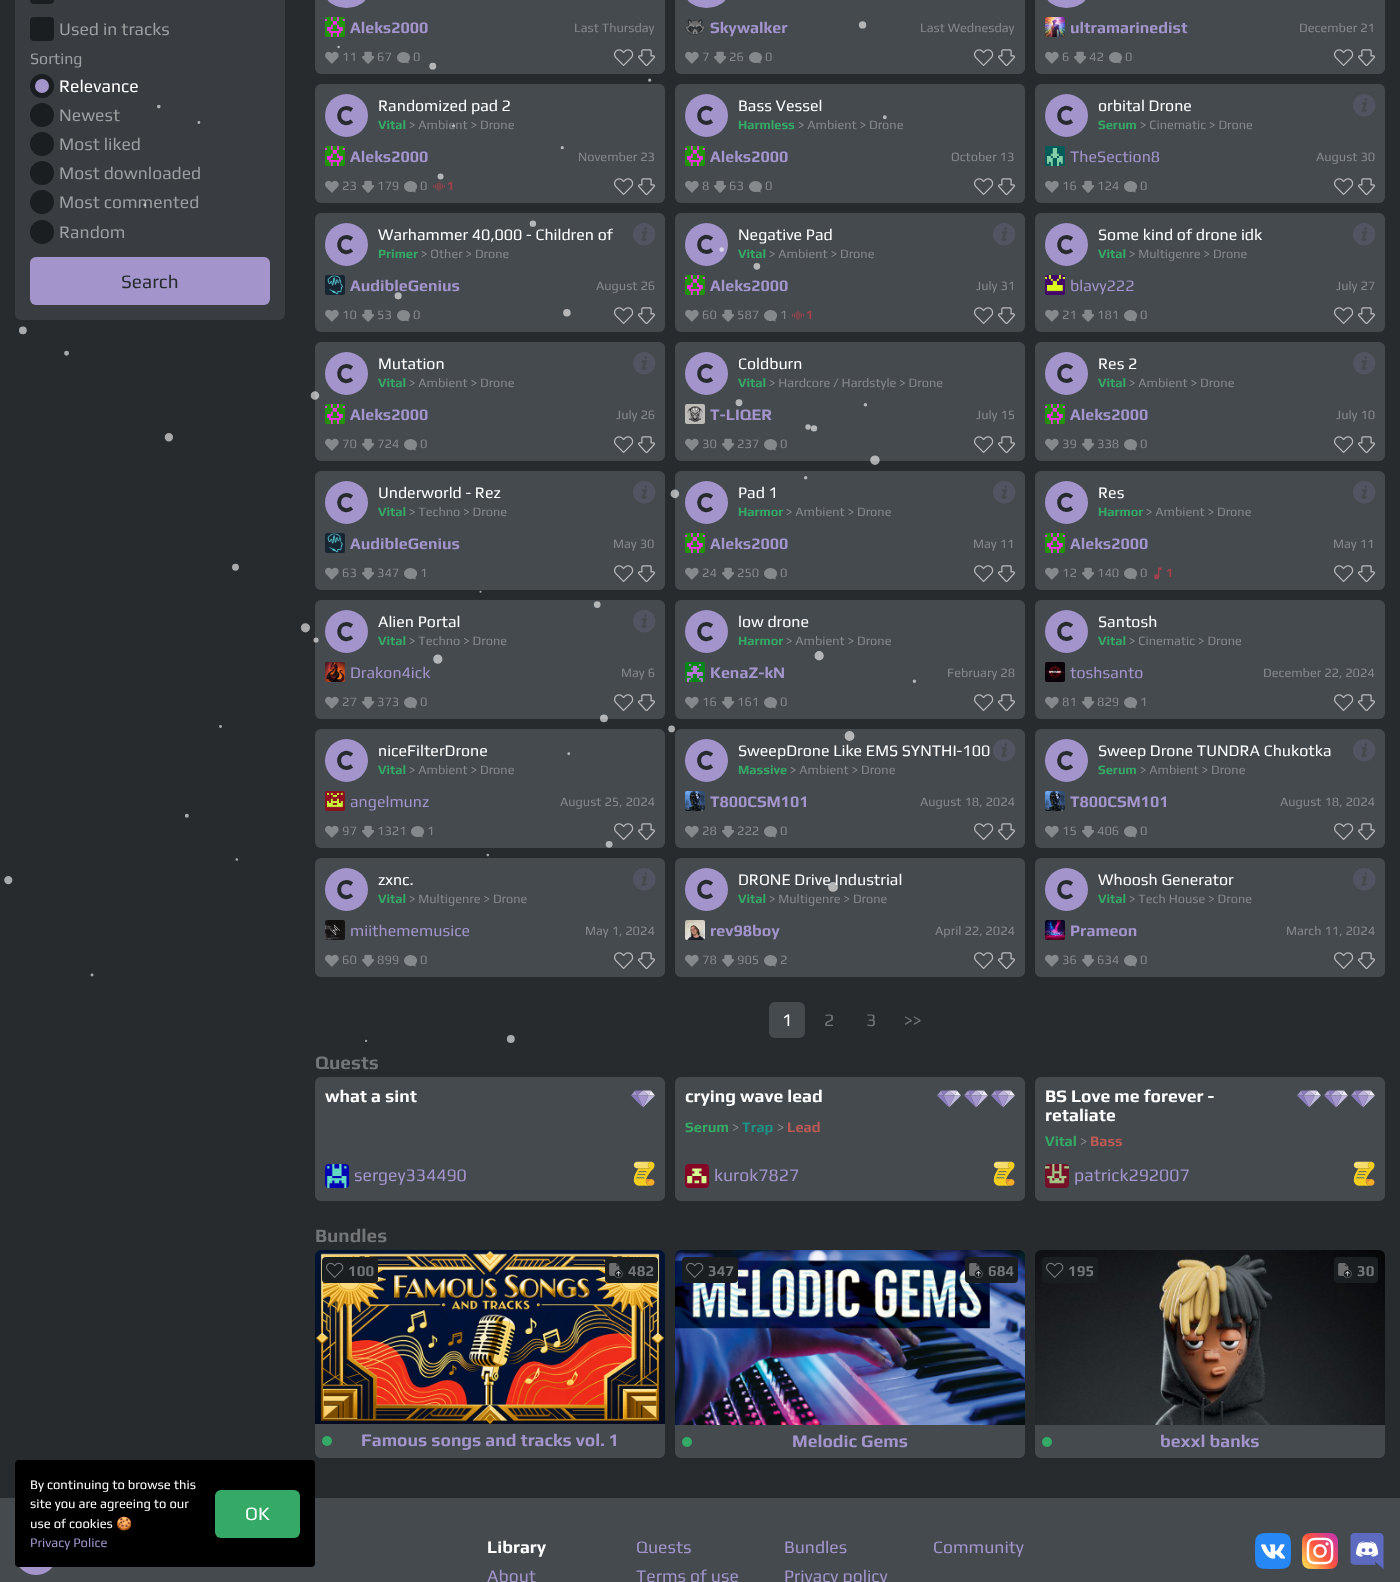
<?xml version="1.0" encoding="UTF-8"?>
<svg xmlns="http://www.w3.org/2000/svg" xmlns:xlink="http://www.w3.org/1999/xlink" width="1400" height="1582">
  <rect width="100%" height="100%" fill="#272b2e" />
  <rect x="15" y="-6" width="270" height="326" rx="6" fill="#393d41" />
  <rect x="30" y="-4" width="24" height="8" rx="4" fill="#1b1e20" />
  <rect x="30" y="17" width="24" height="24" rx="4" fill="#1b1e20" />
  <circle cx="42" cy="86" r="9.5" fill="#a395cc" stroke="#1b1e20" stroke-width="5" />
  <circle cx="42" cy="115" r="12" fill="#1b1e20" />
  <circle cx="42" cy="144" r="12" fill="#1b1e20" />
  <circle cx="42" cy="173" r="12" fill="#1b1e20" />
  <circle cx="42" cy="202" r="12" fill="#1b1e20" />
  <circle cx="42" cy="232" r="12" fill="#1b1e20" />
  <rect x="30" y="257" width="240" height="48" rx="6" fill="#a395cc" />
  <rect x="315" y="-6" width="350" height="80" rx="6" fill="#454a4f" />
  <rect x="325" y="-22" width="43" height="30" rx="21.5" fill="#a395cc" />
  <image x="325" y="17" width="20" height="20" xlink:href="image2.png" />
  <image x="325" y="51" width="14" height="13" xlink:href="image3.png" />
  <image x="362" y="51" width="13" height="13" xlink:href="image4.png" />
  <image x="397" y="52" width="14" height="12" xlink:href="image5.png" />
  <image x="614" y="49" width="20" height="17" xlink:href="image6.png" />
  <image x="638" y="49" width="17" height="17" xlink:href="image7.png" />
  <rect x="675" y="-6" width="350" height="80" rx="6" fill="#454a4f" />
  <rect x="685" y="-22" width="43" height="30" rx="21.5" fill="#a395cc" />
  <image x="685" y="19" width="20" height="16" xlink:href="image8.png" />
  <image x="685" y="51" width="14" height="13" xlink:href="image3.png" />
  <image x="714" y="51" width="13" height="13" xlink:href="image4.png" />
  <image x="749" y="52" width="14" height="12" xlink:href="image5.png" />
  <image x="974" y="49" width="20" height="17" xlink:href="image6.png" />
  <image x="998" y="49" width="17" height="17" xlink:href="image7.png" />
  <rect x="1035" y="-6" width="350" height="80" rx="6" fill="#454a4f" />
  <rect x="1045" y="-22" width="43" height="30" rx="21.5" fill="#a395cc" />
  <image x="1045" y="17" width="20" height="20" xlink:href="image9.png" />
  <image x="1045" y="51" width="14" height="13" xlink:href="image3.png" />
  <image x="1074" y="51" width="13" height="13" xlink:href="image4.png" />
  <image x="1109" y="52" width="14" height="12" xlink:href="image5.png" />
  <image x="1334" y="49" width="20" height="17" xlink:href="image6.png" />
  <image x="1358" y="49" width="17" height="17" xlink:href="image7.png" />
  <rect x="315" y="84" width="350" height="119" rx="6" fill="#454a4f" />
  <circle cx="346.5" cy="115.5" r="21.5" fill="#a395cc" />
  <path d="M 352 121 c -2 1.5 -4.5 2.5 -7 2 c -8.5 -2 -7.5 -15 1.5 -15 c 2 0 4 1 5.5 2" fill="none" stroke="#272b2e" stroke-width="4" />
  <image x="325" y="146" width="20" height="20" xlink:href="image2.png" />
  <image x="325" y="180" width="14" height="13" xlink:href="image3.png" />
  <image x="362" y="180" width="13" height="13" xlink:href="image4.png" />
  <image x="404" y="181" width="14" height="12" xlink:href="image5.png" />
  <image x="433" y="181" width="12" height="11" xlink:href="image10.png" />
  <image x="614" y="178" width="20" height="17" xlink:href="image6.png" />
  <image x="638" y="178" width="17" height="17" xlink:href="image7.png" />
  <rect x="675" y="84" width="350" height="119" rx="6" fill="#454a4f" />
  <circle cx="706.5" cy="115.5" r="21.5" fill="#a395cc" />
  <path d="M 712 121 c -1.5 1 -3.5 2 -5.5 2 c -9 0 -10 -13 -1.5 -15 c 2.5 -0.5 5 0.5 7 2" fill="none" stroke="#272b2e" stroke-width="4" />
  <image x="685" y="146" width="20" height="20" xlink:href="image11.png" />
  <image x="685" y="180" width="14" height="13" xlink:href="image3.png" />
  <image x="714" y="180" width="13" height="13" xlink:href="image4.png" />
  <image x="749" y="181" width="14" height="12" xlink:href="image5.png" />
  <image x="974" y="178" width="20" height="17" xlink:href="image6.png" />
  <image x="998" y="178" width="17" height="17" xlink:href="image7.png" />
  <rect x="1035" y="84" width="350" height="119" rx="6" fill="#454a4f" />
  <image x="1353" y="94" width="23" height="23" xlink:href="image12.png" />
  <circle cx="1066.5" cy="115.5" r="21.5" fill="#a395cc" />
  <path d="M 1072 121 c -1.5 1 -3.5 2 -5.5 2 c -9 0 -10 -13 -1.5 -15 c 2.5 -0.5 5 0.5 7 2" fill="none" stroke="#272b2e" stroke-width="4" />
  <image x="1045" y="146" width="20" height="20" xlink:href="image13.png" />
  <image x="1045" y="180" width="14" height="13" xlink:href="image3.png" />
  <image x="1082" y="180" width="13" height="13" xlink:href="image4.png" />
  <image x="1124" y="181" width="14" height="12" xlink:href="image5.png" />
  <image x="1334" y="178" width="20" height="17" xlink:href="image6.png" />
  <image x="1358" y="178" width="17" height="17" xlink:href="image7.png" />
  <rect x="315" y="213" width="350" height="119" rx="6" fill="#454a4f" />
  <image x="633" y="223" width="23" height="23" xlink:href="image12.png" />
  <circle cx="346.5" cy="244.5" r="21.5" fill="#a395cc" />
  <path d="M 352 250 c -2 1.5 -4.5 2.5 -7 2 c -8.5 -2 -7.5 -15 1.5 -15 c 2 0 4 1 5.5 2" fill="none" stroke="#272b2e" stroke-width="4" />
  <image x="325" y="275" width="20" height="20" xlink:href="image14.png" />
  <image x="325" y="309" width="14" height="13" xlink:href="image3.png" />
  <image x="362" y="309" width="13" height="13" xlink:href="image4.png" />
  <image x="397" y="310" width="14" height="12" xlink:href="image5.png" />
  <image x="614" y="307" width="20" height="17" xlink:href="image6.png" />
  <image x="638" y="307" width="17" height="17" xlink:href="image7.png" />
  <rect x="675" y="213" width="350" height="119" rx="6" fill="#454a4f" />
  <image x="993" y="223" width="23" height="23" xlink:href="image12.png" />
  <circle cx="706.5" cy="244.5" r="21.5" fill="#a395cc" />
  <path d="M 712 250 c -1.5 1 -3.5 2 -5.5 2 c -9 0 -10 -13 -1.5 -15 c 2.5 -0.5 5 0.5 7 2" fill="none" stroke="#272b2e" stroke-width="4" />
  <image x="685" y="275" width="20" height="20" xlink:href="image11.png" />
  <image x="685" y="309" width="14" height="13" xlink:href="image3.png" />
  <image x="722" y="309" width="13" height="13" xlink:href="image4.png" />
  <image x="764" y="310" width="14" height="12" xlink:href="image5.png" />
  <image x="792" y="310" width="12" height="11" xlink:href="image10.png" />
  <image x="974" y="307" width="20" height="17" xlink:href="image6.png" />
  <image x="998" y="307" width="17" height="17" xlink:href="image7.png" />
  <rect x="1035" y="213" width="350" height="119" rx="6" fill="#454a4f" />
  <image x="1353" y="223" width="23" height="23" xlink:href="image12.png" />
  <circle cx="1066.5" cy="244.5" r="21.5" fill="#a395cc" />
  <path d="M 1072 250 c -2 1.5 -4.5 2.5 -7 2 c -8.5 -2 -7.5 -15 1.5 -15 c 2 0 4 1 5.5 2" fill="none" stroke="#272b2e" stroke-width="4" />
  <image x="1045" y="275" width="20" height="20" xlink:href="image15.png" />
  <image x="1045" y="309" width="14" height="13" xlink:href="image3.png" />
  <image x="1082" y="309" width="13" height="13" xlink:href="image4.png" />
  <image x="1124" y="310" width="14" height="12" xlink:href="image5.png" />
  <image x="1334" y="307" width="20" height="17" xlink:href="image6.png" />
  <image x="1358" y="307" width="17" height="17" xlink:href="image7.png" />
  <rect x="315" y="342" width="350" height="119" rx="6" fill="#454a4f" />
  <image x="633" y="352" width="23" height="23" xlink:href="image12.png" />
  <circle cx="346.5" cy="373.5" r="21.5" fill="#a395cc" />
  <path d="M 352 379 c -2 1.5 -4.5 2.5 -7 2 c -8.5 -2 -7.5 -15 1.5 -15 c 2 0 4 1 5.5 2" fill="none" stroke="#272b2e" stroke-width="4" />
  <image x="325" y="404" width="20" height="20" xlink:href="image2.png" />
  <image x="325" y="438" width="14" height="13" xlink:href="image3.png" />
  <image x="362" y="438" width="13" height="13" xlink:href="image4.png" />
  <image x="404" y="439" width="14" height="12" xlink:href="image5.png" />
  <image x="614" y="436" width="20" height="17" xlink:href="image6.png" />
  <image x="638" y="436" width="17" height="17" xlink:href="image7.png" />
  <rect x="675" y="342" width="350" height="119" rx="6" fill="#454a4f" />
  <circle cx="706.5" cy="373.5" r="21.5" fill="#a395cc" />
  <path d="M 712 379 c -1.5 1 -3.5 2 -5.5 2 c -9 0 -10 -13 -1.5 -15 c 2.5 -0.5 5 0.5 7 2" fill="none" stroke="#272b2e" stroke-width="4" />
  <image x="685" y="404" width="20" height="20" xlink:href="image16.png" />
  <image x="685" y="438" width="14" height="13" xlink:href="image3.png" />
  <image x="722" y="438" width="13" height="13" xlink:href="image4.png" />
  <image x="764" y="439" width="14" height="12" xlink:href="image5.png" />
  <image x="974" y="436" width="20" height="17" xlink:href="image6.png" />
  <image x="998" y="436" width="17" height="17" xlink:href="image7.png" />
  <rect x="1035" y="342" width="350" height="119" rx="6" fill="#454a4f" />
  <image x="1353" y="352" width="23" height="23" xlink:href="image12.png" />
  <circle cx="1066.5" cy="373.5" r="21.5" fill="#a395cc" />
  <path d="M 1072 379 c -1.5 1 -3.5 2 -5.5 2 c -9 0 -10 -13 -1.5 -15 c 2.5 -0.5 5 0.5 7 2" fill="none" stroke="#272b2e" stroke-width="4" />
  <image x="1045" y="404" width="20" height="20" xlink:href="image11.png" />
  <image x="1045" y="438" width="14" height="13" xlink:href="image3.png" />
  <image x="1082" y="438" width="13" height="13" xlink:href="image4.png" />
  <image x="1124" y="439" width="14" height="12" xlink:href="image5.png" />
  <image x="1334" y="436" width="20" height="17" xlink:href="image6.png" />
  <image x="1358" y="436" width="17" height="17" xlink:href="image7.png" />
  <rect x="315" y="471" width="350" height="119" rx="6" fill="#454a4f" />
  <image x="633" y="481" width="23" height="23" xlink:href="image12.png" />
  <circle cx="346.5" cy="502.5" r="21.5" fill="#a395cc" />
  <path d="M 352 508 c -2 1.5 -4.5 2.5 -7 2 c -8.5 -2 -7.5 -15 1.5 -15 c 2 0 4 1 5.5 2" fill="none" stroke="#272b2e" stroke-width="4" />
  <image x="325" y="533" width="20" height="20" xlink:href="image14.png" />
  <image x="325" y="567" width="14" height="13" xlink:href="image3.png" />
  <image x="362" y="567" width="13" height="13" xlink:href="image4.png" />
  <image x="404" y="568" width="14" height="12" xlink:href="image5.png" />
  <image x="614" y="565" width="20" height="17" xlink:href="image6.png" />
  <image x="638" y="565" width="17" height="17" xlink:href="image7.png" />
  <rect x="675" y="471" width="350" height="119" rx="6" fill="#454a4f" />
  <image x="993" y="481" width="23" height="23" xlink:href="image12.png" />
  <circle cx="706.5" cy="502.5" r="21.5" fill="#a395cc" />
  <path d="M 712 508 c -2 1.5 -4.5 2.5 -7 2 c -8.5 -2 -7.5 -15 1.5 -15 c 2 0 4 1 5.5 2" fill="none" stroke="#272b2e" stroke-width="4" />
  <image x="685" y="533" width="20" height="20" xlink:href="image11.png" />
  <image x="685" y="567" width="14" height="13" xlink:href="image3.png" />
  <image x="722" y="567" width="13" height="13" xlink:href="image4.png" />
  <image x="764" y="568" width="14" height="12" xlink:href="image5.png" />
  <image x="974" y="565" width="20" height="17" xlink:href="image6.png" />
  <image x="998" y="565" width="17" height="17" xlink:href="image7.png" />
  <rect x="1035" y="471" width="350" height="119" rx="6" fill="#454a4f" />
  <image x="1353" y="481" width="23" height="23" xlink:href="image12.png" />
  <circle cx="1066.5" cy="502.5" r="21.5" fill="#a395cc" />
  <path d="M 1072 508 c -1.5 1 -3.5 2 -5.5 2 c -9 0 -10 -13 -1.5 -15 c 2.5 -0.5 5 0.5 7 2" fill="none" stroke="#272b2e" stroke-width="4" />
  <image x="1045" y="533" width="20" height="20" xlink:href="image11.png" />
  <image x="1045" y="567" width="14" height="13" xlink:href="image3.png" />
  <image x="1082" y="567" width="13" height="13" xlink:href="image4.png" />
  <image x="1124" y="568" width="14" height="12" xlink:href="image5.png" />
  <image x="1154" y="567" width="8" height="13" xlink:href="image17.png" />
  <image x="1334" y="565" width="20" height="17" xlink:href="image6.png" />
  <image x="1358" y="565" width="17" height="17" xlink:href="image7.png" />
  <rect x="315" y="600" width="350" height="119" rx="6" fill="#454a4f" />
  <image x="633" y="610" width="23" height="23" xlink:href="image12.png" />
  <circle cx="346.5" cy="631.5" r="21.5" fill="#a395cc" />
  <path d="M 352 637 c -2 1.5 -4.5 2.5 -7 2 c -8.5 -2 -7.5 -15 1.5 -15 c 2 0 4 1 5.5 2" fill="none" stroke="#272b2e" stroke-width="4" />
  <image x="325" y="662" width="20" height="20" xlink:href="image18.png" />
  <image x="325" y="696" width="14" height="13" xlink:href="image3.png" />
  <image x="362" y="696" width="13" height="13" xlink:href="image4.png" />
  <image x="404" y="697" width="14" height="12" xlink:href="image5.png" />
  <image x="614" y="694" width="20" height="17" xlink:href="image6.png" />
  <image x="638" y="694" width="17" height="17" xlink:href="image7.png" />
  <rect x="675" y="600" width="350" height="119" rx="6" fill="#454a4f" />
  <circle cx="706.5" cy="631.5" r="21.5" fill="#a395cc" />
  <path d="M 712 637 c -2 1.5 -4.5 2.5 -7 2 c -8.5 -2 -7.5 -15 1.5 -15 c 2 0 4 1 5.5 2" fill="none" stroke="#272b2e" stroke-width="4" />
  <image x="685" y="662" width="20" height="20" xlink:href="image19.png" />
  <image x="685" y="696" width="14" height="13" xlink:href="image3.png" />
  <image x="722" y="696" width="13" height="13" xlink:href="image4.png" />
  <image x="764" y="697" width="14" height="12" xlink:href="image5.png" />
  <image x="974" y="694" width="20" height="17" xlink:href="image6.png" />
  <image x="998" y="694" width="17" height="17" xlink:href="image7.png" />
  <rect x="1035" y="600" width="350" height="119" rx="6" fill="#454a4f" />
  <circle cx="1066.5" cy="631.5" r="21.5" fill="#a395cc" />
  <path d="M 1072 637 c -1.5 1 -3.5 2 -5.5 2 c -9 0 -10 -13 -1.5 -15 c 2.5 -0.5 5 0.5 7 2" fill="none" stroke="#272b2e" stroke-width="4" />
  <image x="1045" y="662" width="20" height="20" xlink:href="image20.png" />
  <image x="1045" y="696" width="14" height="13" xlink:href="image3.png" />
  <image x="1082" y="696" width="13" height="13" xlink:href="image4.png" />
  <image x="1124" y="697" width="14" height="12" xlink:href="image5.png" />
  <image x="1334" y="694" width="20" height="17" xlink:href="image6.png" />
  <image x="1358" y="694" width="17" height="17" xlink:href="image7.png" />
  <rect x="315" y="729" width="350" height="119" rx="6" fill="#454a4f" />
  <circle cx="346.5" cy="760.5" r="21.5" fill="#a395cc" />
  <path d="M 352 766 c -1.5 1 -3.5 2 -5.5 2 c -9 0 -10 -13 -1.5 -15 c 2.5 -0.5 5 0.5 7 2" fill="none" stroke="#272b2e" stroke-width="4" />
  <image x="325" y="791" width="20" height="20" xlink:href="image21.png" />
  <image x="325" y="825" width="14" height="13" xlink:href="image3.png" />
  <image x="362" y="825" width="13" height="13" xlink:href="image4.png" />
  <image x="411" y="826" width="14" height="12" xlink:href="image5.png" />
  <image x="614" y="823" width="20" height="17" xlink:href="image6.png" />
  <image x="638" y="823" width="17" height="17" xlink:href="image7.png" />
  <rect x="675" y="729" width="350" height="119" rx="6" fill="#454a4f" />
  <image x="993" y="739" width="23" height="23" xlink:href="image12.png" />
  <circle cx="706.5" cy="760.5" r="21.5" fill="#a395cc" />
  <path d="M 712 766 c -1.5 1 -3.5 2 -5.5 2 c -9 0 -10 -13 -1.5 -15 c 2.5 -0.5 5 0.5 7 2" fill="none" stroke="#272b2e" stroke-width="4" />
  <image x="685" y="791" width="20" height="20" xlink:href="image22.png" />
  <image x="685" y="825" width="14" height="13" xlink:href="image3.png" />
  <image x="722" y="825" width="13" height="13" xlink:href="image4.png" />
  <image x="764" y="826" width="14" height="12" xlink:href="image5.png" />
  <image x="974" y="823" width="20" height="17" xlink:href="image6.png" />
  <image x="998" y="823" width="17" height="17" xlink:href="image7.png" />
  <rect x="1035" y="729" width="350" height="119" rx="6" fill="#454a4f" />
  <image x="1353" y="739" width="23" height="23" xlink:href="image12.png" />
  <circle cx="1066.5" cy="760.5" r="21.5" fill="#a395cc" />
  <path d="M 1072 766 c -2 1.5 -4.5 2.5 -7 2 c -8.5 -2 -7.5 -15 1.5 -15 c 2 0 4 1 5.5 2" fill="none" stroke="#272b2e" stroke-width="4" />
  <image x="1045" y="791" width="20" height="20" xlink:href="image22.png" />
  <image x="1045" y="825" width="14" height="13" xlink:href="image3.png" />
  <image x="1082" y="825" width="13" height="13" xlink:href="image4.png" />
  <image x="1124" y="826" width="14" height="12" xlink:href="image5.png" />
  <image x="1334" y="823" width="20" height="17" xlink:href="image6.png" />
  <image x="1358" y="823" width="17" height="17" xlink:href="image7.png" />
  <rect x="315" y="858" width="350" height="119" rx="6" fill="#454a4f" />
  <image x="633" y="868" width="23" height="23" xlink:href="image12.png" />
  <circle cx="346.5" cy="889.5" r="21.5" fill="#a395cc" />
  <path d="M 352 895 c -2 1.5 -4.5 2.5 -7 2 c -8.5 -2 -7.5 -15 1.5 -15 c 2 0 4 1 5.5 2" fill="none" stroke="#272b2e" stroke-width="4" />
  <image x="325" y="920" width="20" height="20" xlink:href="image23.png" />
  <image x="325" y="954" width="14" height="13" xlink:href="image3.png" />
  <image x="362" y="954" width="13" height="13" xlink:href="image4.png" />
  <image x="404" y="955" width="14" height="12" xlink:href="image5.png" />
  <image x="614" y="952" width="20" height="17" xlink:href="image6.png" />
  <image x="638" y="952" width="17" height="17" xlink:href="image7.png" />
  <rect x="675" y="858" width="350" height="119" rx="6" fill="#454a4f" />
  <circle cx="706.5" cy="889.5" r="21.5" fill="#a395cc" />
  <path d="M 712 895 c -1.5 1 -3.5 2 -5.5 2 c -9 0 -10 -13 -1.5 -15 c 2.5 -0.5 5 0.5 7 2" fill="none" stroke="#272b2e" stroke-width="4" />
  <image x="685" y="920" width="20" height="20" xlink:href="image24.png" />
  <image x="685" y="954" width="14" height="13" xlink:href="image3.png" />
  <image x="722" y="954" width="13" height="13" xlink:href="image4.png" />
  <image x="764" y="955" width="14" height="12" xlink:href="image5.png" />
  <image x="974" y="952" width="20" height="17" xlink:href="image6.png" />
  <image x="998" y="952" width="17" height="17" xlink:href="image7.png" />
  <rect x="1035" y="858" width="350" height="119" rx="6" fill="#454a4f" />
  <image x="1353" y="868" width="23" height="23" xlink:href="image12.png" />
  <circle cx="1066.5" cy="889.5" r="21.5" fill="#a395cc" />
  <path d="M 1072 895 c -2 1.5 -4.5 2.5 -7 2 c -8.5 -2 -7.5 -15 1.5 -15 c 2 0 4 1 5.5 2" fill="none" stroke="#272b2e" stroke-width="4" />
  <image x="1045" y="920" width="20" height="20" xlink:href="image25.png" />
  <image x="1045" y="954" width="14" height="13" xlink:href="image3.png" />
  <image x="1082" y="954" width="13" height="13" xlink:href="image4.png" />
  <image x="1124" y="955" width="14" height="12" xlink:href="image5.png" />
  <image x="1334" y="952" width="20" height="17" xlink:href="image6.png" />
  <image x="1358" y="952" width="17" height="17" xlink:href="image7.png" />
  <rect x="769" y="1002" width="36" height="36" rx="6" fill="#454a4f" />
  <rect x="315" y="1077" width="350" height="124" rx="6" fill="#454a4f" />
  <image x="631" y="1090" width="24" height="18" xlink:href="image26.png" />
  <image x="325" y="1164" width="24" height="24" xlink:href="image27.png" />
  <image x="633" y="1161" width="22" height="25" xlink:href="image28.png" />
  <rect x="675" y="1077" width="350" height="124" rx="6" fill="#454a4f" />
  <image x="937" y="1090" width="24" height="18" xlink:href="image26.png" />
  <image x="964" y="1090" width="24" height="18" xlink:href="image26.png" />
  <image x="991" y="1090" width="24" height="18" xlink:href="image26.png" />
  <image x="685" y="1164" width="24" height="24" xlink:href="image29.png" />
  <image x="993" y="1161" width="22" height="25" xlink:href="image28.png" />
  <rect x="1035" y="1077" width="350" height="124" rx="6" fill="#454a4f" />
  <image x="1297" y="1090" width="24" height="18" xlink:href="image26.png" />
  <image x="1324" y="1090" width="24" height="18" xlink:href="image26.png" />
  <image x="1351" y="1090" width="24" height="18" xlink:href="image26.png" />
  <image x="1045" y="1164" width="24" height="24" xlink:href="image30.png" />
  <image x="1353" y="1161" width="22" height="25" xlink:href="image28.png" />
  <image x="315" y="1250" width="350" height="174" xlink:href="image32.png" />
  <rect x="322" y="1257" width="56" height="26" rx="4" fill="#1b1e20" />
  <image x="326" y="1262" width="18" height="16" xlink:href="image31.png" />
  <rect x="605" y="1257" width="53" height="26" rx="4" fill="#1b1e20" />
  <image x="609" y="1263" width="14" height="15" xlink:href="image33.png" />
  <path d="M 315 1424 h 350 v 28 c 0 3.5 -2.5 6 -6 6 h -338 c -3.5 0 -6 -2.5 -6 -6 z" fill="#454a4f" />
  <circle cx="327" cy="1441" r="5" fill="#35aa66" />
  <image x="675" y="1250" width="350" height="175" xlink:href="image34.png" />
  <rect x="682" y="1257" width="56" height="26" rx="4" fill="#1b1e20" />
  <image x="686" y="1262" width="18" height="16" xlink:href="image31.png" />
  <rect x="965" y="1257" width="53" height="26" rx="4" fill="#1b1e20" />
  <image x="969" y="1263" width="14" height="15" xlink:href="image33.png" />
  <path d="M 675 1425 h 350 v 27 c 0 3.5 -2.5 6 -6 6 h -338 c -3.5 0 -6 -2.5 -6 -6 z" fill="#454a4f" />
  <circle cx="687" cy="1442" r="5" fill="#35aa66" />
  <image x="1035" y="1250" width="350" height="175" xlink:href="image35.png" />
  <rect x="1042" y="1257" width="56" height="26" rx="4" fill="#1b1e20" />
  <image x="1046" y="1262" width="18" height="16" xlink:href="image31.png" />
  <rect x="1334" y="1257" width="44" height="26" rx="4" fill="#1b1e20" />
  <image x="1338" y="1263" width="14" height="15" xlink:href="image33.png" />
  <path d="M 1035 1425 h 350 v 27 c 0 3.5 -2.5 6 -6 6 h -338 c -3.5 0 -6 -2.5 -6 -6 z" fill="#454a4f" />
  <circle cx="1047" cy="1442" r="5" fill="#35aa66" />
  <rect y="1498" width="1400" height="84" fill="#454a4f" />
  <image x="18" y="1566" width="35" height="9" xlink:href="image36.png" />
  <rect x="15" y="1460" width="300" height="107" rx="4" fill="#000000" />
  <rect x="215" y="1490" width="85" height="48" rx="6" fill="#35aa66" />
  <image x="1255" y="1533" width="36" height="36" xlink:href="image37.png" />
  <image x="1302" y="1533" width="36" height="36" xlink:href="image38.png" />
  <image x="1350" y="1533" width="34" height="36" xlink:href="image39.png" />
  <text x="59" y="35" style="font-family: Play; font-size: 17.6px; fill: #9c9ea0">Used in tracks</text>
  <text x="30" y="64" style="font-family: Play; font-size: 16px; fill: #9c9ea0">Sorting</text>
  <text x="59" y="92" style="font-family: Play; font-size: 17.6px; fill: #ffffff">Relevance</text>
  <text x="59" y="121" style="font-family: Play; font-size: 17.6px; fill: #9c9ea0">Newest</text>
  <text x="59" y="150" style="font-family: Play; font-size: 17.6px; fill: #9c9ea0">Most liked</text>
  <text x="59" y="179" style="font-family: Play; font-size: 17.6px; fill: #9c9ea0">Most downloaded</text>
  <text x="59" y="208" style="font-family: Play; font-size: 17.6px; fill: #9c9ea0">Most commented</text>
  <text x="59" y="238" style="font-family: Play; font-size: 17.6px; fill: #9c9ea0">Random</text>
  <text x="121" y="288" style="font-family: Play; font-size: 19px; fill: #272b2e">Search</text>
  <text x="350" y="33" style="font-family: Play; font-size: 16px; font-weight: bold; fill: #a395cc">Aleks2000</text>
  <text x="574" y="32" style="font-family: Play; font-size: 12.75px; fill: #86898d">Last Thursday</text>
  <text x="342" y="61" style="font-family: Play; font-size: 12.75px; fill: #86898d">11</text>
  <text x="377" y="61" style="font-family: Play; font-size: 12.75px; fill: #86898d">67</text>
  <text x="413" y="61" style="font-family: Play; font-size: 12.75px; fill: #86898d">0</text>
  <text x="710" y="33" style="font-family: Play; font-size: 16px; font-weight: bold; fill: #a395cc">Skywalker</text>
  <text x="920" y="32" style="font-family: Play; font-size: 12.75px; fill: #86898d">Last Wednesday</text>
  <text x="702" y="61" style="font-family: Play; font-size: 12.75px; fill: #86898d">7</text>
  <text x="729" y="61" style="font-family: Play; font-size: 12.75px; fill: #86898d">26</text>
  <text x="765" y="61" style="font-family: Play; font-size: 12.75px; fill: #86898d">0</text>
  <text x="1070" y="33" style="font-family: Play; font-size: 16px; font-weight: bold; fill: #a395cc">ultramarinedist</text>
  <text x="1299" y="32" style="font-family: Play; font-size: 12.75px; fill: #86898d">December 21</text>
  <text x="1062" y="61" style="font-family: Play; font-size: 12.75px; fill: #86898d">6</text>
  <text x="1089" y="61" style="font-family: Play; font-size: 12.75px; fill: #86898d">42</text>
  <text x="1125" y="61" style="font-family: Play; font-size: 12.75px; fill: #86898d">0</text>
  <text x="378" y="111" style="font-family: Play; font-size: 16px; fill: #ffffff">Randomized pad 2</text>
  <text x="378" y="129" style="font-family: Play; font-size: 12.75px; font-weight: bold; fill: #35aa66">Vital</text>
  <text x="409" y="129" style="font-family: Play; font-size: 12.75px; fill: #86898d">&gt; Ambient &gt; Drone</text>
  <text x="350" y="162" style="font-family: Play; font-size: 16px; font-weight: bold; fill: #a395cc">Aleks2000</text>
  <text x="578" y="161" style="font-family: Play; font-size: 12.75px; fill: #86898d">November 23</text>
  <text x="342" y="190" style="font-family: Play; font-size: 12.75px; fill: #86898d">23</text>
  <text x="377" y="190" style="font-family: Play; font-size: 12.75px; fill: #86898d">179</text>
  <text x="420" y="190" style="font-family: Play; font-size: 12.75px; fill: #86898d">0</text>
  <text x="447" y="190" style="font-family: Play; font-size: 12.75px; font-weight: bold; fill: #a0424b">1</text>
  <text x="738" y="111" style="font-family: Play; font-size: 16px; fill: #ffffff">Bass Vessel</text>
  <text x="738" y="129" style="font-family: Play; font-size: 12.75px; font-weight: bold; fill: #35aa66">Harmless</text>
  <text x="798" y="129" style="font-family: Play; font-size: 12.75px; fill: #86898d">&gt; Ambient &gt; Drone</text>
  <text x="710" y="162" style="font-family: Play; font-size: 16px; font-weight: bold; fill: #a395cc">Aleks2000</text>
  <text x="951" y="161" style="font-family: Play; font-size: 12.75px; fill: #86898d">October 13</text>
  <text x="702" y="190" style="font-family: Play; font-size: 12.75px; fill: #86898d">8</text>
  <text x="729" y="190" style="font-family: Play; font-size: 12.75px; fill: #86898d">63</text>
  <text x="765" y="190" style="font-family: Play; font-size: 12.75px; fill: #86898d">0</text>
  <text x="1098" y="111" style="font-family: Play; font-size: 16px; fill: #ffffff">orbital Drone</text>
  <text x="1098" y="129" style="font-family: Play; font-size: 12.75px; font-weight: bold; fill: #35aa66">Serum</text>
  <text x="1140" y="129" style="font-family: Play; font-size: 12.75px; fill: #86898d">&gt; Cinematic &gt; Drone</text>
  <text x="1070" y="162" style="font-family: Play; font-size: 16px; fill: #a395cc">TheSection8</text>
  <text x="1316" y="161" style="font-family: Play; font-size: 12.75px; fill: #86898d">August 30</text>
  <text x="1062" y="190" style="font-family: Play; font-size: 12.75px; fill: #86898d">16</text>
  <text x="1097" y="190" style="font-family: Play; font-size: 12.75px; fill: #86898d">124</text>
  <text x="1140" y="190" style="font-family: Play; font-size: 12.75px; fill: #86898d">0</text>
  <text x="378" y="240" style="font-family: Play; font-size: 16px; fill: #ffffff">Warhammer 40,000 - Children of</text>
  <text x="378" y="258" style="font-family: Play; font-size: 12.75px; font-weight: bold; fill: #35aa66">Primer</text>
  <text x="421" y="258" style="font-family: Play; font-size: 12.75px; fill: #86898d">&gt; Other &gt; Drone</text>
  <text x="350" y="291" style="font-family: Play; font-size: 16px; font-weight: bold; fill: #a395cc">AudibleGenius</text>
  <text x="596" y="290" style="font-family: Play; font-size: 12.75px; fill: #86898d">August 26</text>
  <text x="342" y="319" style="font-family: Play; font-size: 12.75px; fill: #86898d">10</text>
  <text x="377" y="319" style="font-family: Play; font-size: 12.75px; fill: #86898d">53</text>
  <text x="413" y="319" style="font-family: Play; font-size: 12.75px; fill: #86898d">0</text>
  <text x="738" y="240" style="font-family: Play; font-size: 16px; fill: #ffffff">Negative Pad</text>
  <text x="738" y="258" style="font-family: Play; font-size: 12.75px; font-weight: bold; fill: #35aa66">Vital</text>
  <text x="769" y="258" style="font-family: Play; font-size: 12.75px; fill: #86898d">&gt; Ambient &gt; Drone</text>
  <text x="710" y="291" style="font-family: Play; font-size: 16px; font-weight: bold; fill: #a395cc">Aleks2000</text>
  <text x="976" y="290" style="font-family: Play; font-size: 12.75px; fill: #86898d">July 31</text>
  <text x="702" y="319" style="font-family: Play; font-size: 12.75px; fill: #86898d">60</text>
  <text x="737" y="319" style="font-family: Play; font-size: 12.75px; fill: #86898d">587</text>
  <text x="780" y="319" style="font-family: Play; font-size: 12.75px; fill: #86898d">1</text>
  <text x="806" y="319" style="font-family: Play; font-size: 12.75px; font-weight: bold; fill: #a0424b">1</text>
  <text x="1098" y="240" style="font-family: Play; font-size: 16px; fill: #ffffff">Some kind of drone idk</text>
  <text x="1098" y="258" style="font-family: Play; font-size: 12.75px; font-weight: bold; fill: #35aa66">Vital</text>
  <text x="1129" y="258" style="font-family: Play; font-size: 12.75px; fill: #86898d">&gt; Multigenre &gt; Drone</text>
  <text x="1070" y="291" style="font-family: Play; font-size: 16px; fill: #a395cc">blavy222</text>
  <text x="1336" y="290" style="font-family: Play; font-size: 12.75px; fill: #86898d">July 27</text>
  <text x="1062" y="319" style="font-family: Play; font-size: 12.75px; fill: #86898d">21</text>
  <text x="1097" y="319" style="font-family: Play; font-size: 12.75px; fill: #86898d">181</text>
  <text x="1140" y="319" style="font-family: Play; font-size: 12.75px; fill: #86898d">0</text>
  <text x="378" y="369" style="font-family: Play; font-size: 16px; fill: #ffffff">Mutation</text>
  <text x="378" y="387" style="font-family: Play; font-size: 12.75px; font-weight: bold; fill: #35aa66">Vital</text>
  <text x="409" y="387" style="font-family: Play; font-size: 12.75px; fill: #86898d">&gt; Ambient &gt; Drone</text>
  <text x="350" y="420" style="font-family: Play; font-size: 16px; font-weight: bold; fill: #a395cc">Aleks2000</text>
  <text x="616" y="419" style="font-family: Play; font-size: 12.75px; fill: #86898d">July 26</text>
  <text x="342" y="448" style="font-family: Play; font-size: 12.75px; fill: #86898d">70</text>
  <text x="377" y="448" style="font-family: Play; font-size: 12.75px; fill: #86898d">724</text>
  <text x="420" y="448" style="font-family: Play; font-size: 12.75px; fill: #86898d">0</text>
  <text x="738" y="369" style="font-family: Play; font-size: 16px; fill: #ffffff">Coldburn</text>
  <text x="738" y="387" style="font-family: Play; font-size: 12.75px; font-weight: bold; fill: #35aa66">Vital</text>
  <text x="769" y="387" style="font-family: Play; font-size: 12.75px; fill: #86898d">&gt; Hardcore / Hardstyle &gt; Drone</text>
  <text x="710" y="420" style="font-family: Play; font-size: 16px; font-weight: bold; fill: #a395cc">T-LIQER</text>
  <text x="976" y="419" style="font-family: Play; font-size: 12.75px; fill: #86898d">July 15</text>
  <text x="702" y="448" style="font-family: Play; font-size: 12.75px; fill: #86898d">30</text>
  <text x="737" y="448" style="font-family: Play; font-size: 12.75px; fill: #86898d">237</text>
  <text x="780" y="448" style="font-family: Play; font-size: 12.75px; fill: #86898d">0</text>
  <text x="1098" y="369" style="font-family: Play; font-size: 16px; fill: #ffffff">Res 2</text>
  <text x="1098" y="387" style="font-family: Play; font-size: 12.75px; font-weight: bold; fill: #35aa66">Vital</text>
  <text x="1129" y="387" style="font-family: Play; font-size: 12.75px; fill: #86898d">&gt; Ambient &gt; Drone</text>
  <text x="1070" y="420" style="font-family: Play; font-size: 16px; font-weight: bold; fill: #a395cc">Aleks2000</text>
  <text x="1336" y="419" style="font-family: Play; font-size: 12.75px; fill: #86898d">July 10</text>
  <text x="1062" y="448" style="font-family: Play; font-size: 12.75px; fill: #86898d">39</text>
  <text x="1097" y="448" style="font-family: Play; font-size: 12.75px; fill: #86898d">338</text>
  <text x="1140" y="448" style="font-family: Play; font-size: 12.75px; fill: #86898d">0</text>
  <text x="378" y="498" style="font-family: Play; font-size: 16px; fill: #ffffff">Underworld - Rez</text>
  <text x="378" y="516" style="font-family: Play; font-size: 12.75px; font-weight: bold; fill: #35aa66">Vital</text>
  <text x="409" y="516" style="font-family: Play; font-size: 12.75px; fill: #86898d">&gt; Techno &gt; Drone</text>
  <text x="350" y="549" style="font-family: Play; font-size: 16px; font-weight: bold; fill: #a395cc">AudibleGenius</text>
  <text x="613" y="548" style="font-family: Play; font-size: 12.75px; fill: #86898d">May 30</text>
  <text x="342" y="577" style="font-family: Play; font-size: 12.75px; fill: #86898d">63</text>
  <text x="377" y="577" style="font-family: Play; font-size: 12.75px; fill: #86898d">347</text>
  <text x="420" y="577" style="font-family: Play; font-size: 12.75px; fill: #86898d">1</text>
  <text x="738" y="498" style="font-family: Play; font-size: 16px; fill: #ffffff">Pad 1</text>
  <text x="738" y="516" style="font-family: Play; font-size: 12.75px; font-weight: bold; fill: #35aa66">Harmor</text>
  <text x="786" y="516" style="font-family: Play; font-size: 12.75px; fill: #86898d">&gt; Ambient &gt; Drone</text>
  <text x="710" y="549" style="font-family: Play; font-size: 16px; font-weight: bold; fill: #a395cc">Aleks2000</text>
  <text x="973" y="548" style="font-family: Play; font-size: 12.75px; fill: #86898d">May 11</text>
  <text x="702" y="577" style="font-family: Play; font-size: 12.75px; fill: #86898d">24</text>
  <text x="737" y="577" style="font-family: Play; font-size: 12.75px; fill: #86898d">250</text>
  <text x="780" y="577" style="font-family: Play; font-size: 12.75px; fill: #86898d">0</text>
  <text x="1098" y="498" style="font-family: Play; font-size: 16px; fill: #ffffff">Res</text>
  <text x="1098" y="516" style="font-family: Play; font-size: 12.75px; font-weight: bold; fill: #35aa66">Harmor</text>
  <text x="1146" y="516" style="font-family: Play; font-size: 12.75px; fill: #86898d">&gt; Ambient &gt; Drone</text>
  <text x="1070" y="549" style="font-family: Play; font-size: 16px; font-weight: bold; fill: #a395cc">Aleks2000</text>
  <text x="1333" y="548" style="font-family: Play; font-size: 12.75px; fill: #86898d">May 11</text>
  <text x="1062" y="577" style="font-family: Play; font-size: 12.75px; fill: #86898d">12</text>
  <text x="1097" y="577" style="font-family: Play; font-size: 12.75px; fill: #86898d">140</text>
  <text x="1140" y="577" style="font-family: Play; font-size: 12.75px; fill: #86898d">0</text>
  <text x="1166" y="577" style="font-family: Play; font-size: 12.75px; font-weight: bold; fill: #a0424b">1</text>
  <text x="378" y="627" style="font-family: Play; font-size: 16px; fill: #ffffff">Alien Portal</text>
  <text x="378" y="645" style="font-family: Play; font-size: 12.75px; font-weight: bold; fill: #35aa66">Vital</text>
  <text x="409" y="645" style="font-family: Play; font-size: 12.75px; fill: #86898d">&gt; Techno &gt; Drone</text>
  <text x="350" y="678" style="font-family: Play; font-size: 16px; fill: #a395cc">Drakon4ick</text>
  <text x="621" y="677" style="font-family: Play; font-size: 12.75px; fill: #86898d">May 6</text>
  <text x="342" y="706" style="font-family: Play; font-size: 12.75px; fill: #86898d">27</text>
  <text x="377" y="706" style="font-family: Play; font-size: 12.75px; fill: #86898d">373</text>
  <text x="420" y="706" style="font-family: Play; font-size: 12.75px; fill: #86898d">0</text>
  <text x="738" y="627" style="font-family: Play; font-size: 16px; fill: #ffffff">low drone</text>
  <text x="738" y="645" style="font-family: Play; font-size: 12.75px; font-weight: bold; fill: #35aa66">Harmor</text>
  <text x="786" y="645" style="font-family: Play; font-size: 12.75px; fill: #86898d">&gt; Ambient &gt; Drone</text>
  <text x="710" y="678" style="font-family: Play; font-size: 16px; font-weight: bold; fill: #a395cc">KenaZ-kN</text>
  <text x="947" y="677" style="font-family: Play; font-size: 12.75px; fill: #86898d">February 28</text>
  <text x="702" y="706" style="font-family: Play; font-size: 12.75px; fill: #86898d">16</text>
  <text x="737" y="706" style="font-family: Play; font-size: 12.75px; fill: #86898d">161</text>
  <text x="780" y="706" style="font-family: Play; font-size: 12.75px; fill: #86898d">0</text>
  <text x="1098" y="627" style="font-family: Play; font-size: 16px; fill: #ffffff">Santosh</text>
  <text x="1098" y="645" style="font-family: Play; font-size: 12.75px; font-weight: bold; fill: #35aa66">Vital</text>
  <text x="1129" y="645" style="font-family: Play; font-size: 12.75px; fill: #86898d">&gt; Cinematic &gt; Drone</text>
  <text x="1070" y="678" style="font-family: Play; font-size: 16px; fill: #a395cc">toshsanto</text>
  <text x="1263" y="677" style="font-family: Play; font-size: 12.75px; fill: #86898d">December 22, 2024</text>
  <text x="1062" y="706" style="font-family: Play; font-size: 12.75px; fill: #86898d">81</text>
  <text x="1097" y="706" style="font-family: Play; font-size: 12.75px; fill: #86898d">829</text>
  <text x="1140" y="706" style="font-family: Play; font-size: 12.75px; fill: #86898d">1</text>
  <text x="378" y="756" style="font-family: Play; font-size: 16px; fill: #ffffff">niceFilterDrone</text>
  <text x="378" y="774" style="font-family: Play; font-size: 12.75px; font-weight: bold; fill: #35aa66">Vital</text>
  <text x="409" y="774" style="font-family: Play; font-size: 12.75px; fill: #86898d">&gt; Ambient &gt; Drone</text>
  <text x="350" y="807" style="font-family: Play; font-size: 16px; fill: #a395cc">angelmunz</text>
  <text x="560" y="806" style="font-family: Play; font-size: 12.75px; fill: #86898d">August 25, 2024</text>
  <text x="342" y="835" style="font-family: Play; font-size: 12.75px; fill: #86898d">97</text>
  <text x="377" y="835" style="font-family: Play; font-size: 12.75px; fill: #86898d">1321</text>
  <text x="427" y="835" style="font-family: Play; font-size: 12.75px; fill: #86898d">1</text>
  <text x="738" y="756" style="font-family: Play; font-size: 16px; fill: #ffffff">SweepDrone Like EMS SYNTHI-100</text>
  <text x="738" y="774" style="font-family: Play; font-size: 12.75px; font-weight: bold; fill: #35aa66">Massive</text>
  <text x="790" y="774" style="font-family: Play; font-size: 12.75px; fill: #86898d">&gt; Ambient &gt; Drone</text>
  <text x="710" y="807" style="font-family: Play; font-size: 16px; font-weight: bold; fill: #a395cc">T800CSM101</text>
  <text x="920" y="806" style="font-family: Play; font-size: 12.75px; fill: #86898d">August 18, 2024</text>
  <text x="702" y="835" style="font-family: Play; font-size: 12.75px; fill: #86898d">28</text>
  <text x="737" y="835" style="font-family: Play; font-size: 12.75px; fill: #86898d">222</text>
  <text x="780" y="835" style="font-family: Play; font-size: 12.75px; fill: #86898d">0</text>
  <text x="1098" y="756" style="font-family: Play; font-size: 16px; fill: #ffffff">Sweep Drone TUNDRA Chukotka</text>
  <text x="1098" y="774" style="font-family: Play; font-size: 12.75px; font-weight: bold; fill: #35aa66">Serum</text>
  <text x="1140" y="774" style="font-family: Play; font-size: 12.75px; fill: #86898d">&gt; Ambient &gt; Drone</text>
  <text x="1070" y="807" style="font-family: Play; font-size: 16px; font-weight: bold; fill: #a395cc">T800CSM101</text>
  <text x="1280" y="806" style="font-family: Play; font-size: 12.75px; fill: #86898d">August 18, 2024</text>
  <text x="1062" y="835" style="font-family: Play; font-size: 12.75px; fill: #86898d">15</text>
  <text x="1097" y="835" style="font-family: Play; font-size: 12.75px; fill: #86898d">406</text>
  <text x="1140" y="835" style="font-family: Play; font-size: 12.75px; fill: #86898d">0</text>
  <text x="378" y="885" style="font-family: Play; font-size: 16px; fill: #ffffff">zxnc.</text>
  <text x="378" y="903" style="font-family: Play; font-size: 12.75px; font-weight: bold; fill: #35aa66">Vital</text>
  <text x="409" y="903" style="font-family: Play; font-size: 12.75px; fill: #86898d">&gt; Multigenre &gt; Drone</text>
  <text x="350" y="936" style="font-family: Play; font-size: 16px; fill: #a395cc">miithememusice</text>
  <text x="585" y="935" style="font-family: Play; font-size: 12.75px; fill: #86898d">May 1, 2024</text>
  <text x="342" y="964" style="font-family: Play; font-size: 12.75px; fill: #86898d">60</text>
  <text x="377" y="964" style="font-family: Play; font-size: 12.75px; fill: #86898d">899</text>
  <text x="420" y="964" style="font-family: Play; font-size: 12.75px; fill: #86898d">0</text>
  <text x="738" y="885" style="font-family: Play; font-size: 16px; fill: #ffffff">DRONE Drive Industrial</text>
  <text x="738" y="903" style="font-family: Play; font-size: 12.75px; font-weight: bold; fill: #35aa66">Vital</text>
  <text x="769" y="903" style="font-family: Play; font-size: 12.75px; fill: #86898d">&gt; Multigenre &gt; Drone</text>
  <text x="710" y="936" style="font-family: Play; font-size: 16px; font-weight: bold; fill: #a395cc">rev98boy</text>
  <text x="935" y="935" style="font-family: Play; font-size: 12.75px; fill: #86898d">April 22, 2024</text>
  <text x="702" y="964" style="font-family: Play; font-size: 12.75px; fill: #86898d">78</text>
  <text x="737" y="964" style="font-family: Play; font-size: 12.75px; fill: #86898d">905</text>
  <text x="780" y="964" style="font-family: Play; font-size: 12.75px; fill: #86898d">2</text>
  <text x="1098" y="885" style="font-family: Play; font-size: 16px; fill: #ffffff">Whoosh Generator</text>
  <text x="1098" y="903" style="font-family: Play; font-size: 12.75px; font-weight: bold; fill: #35aa66">Vital</text>
  <text x="1129" y="903" style="font-family: Play; font-size: 12.75px; fill: #86898d">&gt; Tech House &gt; Drone</text>
  <text x="1070" y="936" style="font-family: Play; font-size: 16px; font-weight: bold; fill: #a395cc">Prameon</text>
  <text x="1286" y="935" style="font-family: Play; font-size: 12.75px; fill: #86898d">March 11, 2024</text>
  <text x="1062" y="964" style="font-family: Play; font-size: 12.75px; fill: #86898d">36</text>
  <text x="1097" y="964" style="font-family: Play; font-size: 12.75px; fill: #86898d">634</text>
  <text x="1140" y="964" style="font-family: Play; font-size: 12.75px; fill: #86898d">0</text>
  <text x="782" y="1026" style="font-family: Play; font-size: 17.6px; fill: #ffffff">1</text>
  <text x="824" y="1026" style="font-family: Play; font-size: 17.6px; fill: #737577">2</text>
  <text x="866" y="1026" style="font-family: Play; font-size: 17.6px; fill: #737577">3</text>
  <text x="904" y="1026" style="font-family: Play; font-size: 17.6px; fill: #737577">&gt;&gt;</text>
  <image x="4" y="21" width="912" height="1022" xlink:href="image1.png" />
  <text x="315" y="1069" style="font-family: Play; font-size: 19px; font-weight: bold; fill: #737577">Quests</text>
  <text x="325" y="1102" style="font-family: Play; font-size: 17.6px; font-weight: bold; fill: #ffffff">what a sint</text>
  <text x="354" y="1181" style="font-family: Play; font-size: 17.6px; fill: #a395cc">sergey334490</text>
  <text x="685" y="1102" style="font-family: Play; font-size: 17.6px; font-weight: bold; fill: #ffffff">crying wave lead</text>
  <text x="685" y="1132" style="font-family: Play; font-size: 14.5px; font-weight: bold; fill: #35aa66">Serum</text>
  <text x="732" y="1132" style="font-family: Play; font-size: 14.5px; fill: #86898d">&gt;</text>
  <text x="742" y="1132" style="font-family: Play; font-size: 14.5px; font-weight: bold; fill: #1f9084">Trap</text>
  <text x="777" y="1132" style="font-family: Play; font-size: 14.5px; fill: #86898d">&gt;</text>
  <text x="787" y="1132" style="font-family: Play; font-size: 14.5px; font-weight: bold; fill: #bb5a55">Lead</text>
  <text x="714" y="1181" style="font-family: Play; font-size: 17.6px; fill: #a395cc">kurok7827</text>
  <text x="1045" y="1102" style="font-family: Play; font-size: 17.6px; font-weight: bold; fill: #ffffff">BS Love me forever -</text>
  <text x="1045" y="1121" style="font-family: Play; font-size: 17.6px; font-weight: bold; fill: #ffffff">retaliate</text>
  <text x="1045" y="1146" style="font-family: Play; font-size: 14.5px; font-weight: bold; fill: #35aa66">Vital</text>
  <text x="1080" y="1146" style="font-family: Play; font-size: 14.5px; fill: #86898d">&gt;</text>
  <text x="1090" y="1146" style="font-family: Play; font-size: 14.5px; font-weight: bold; fill: #bb5a55">Bass</text>
  <text x="1074" y="1181" style="font-family: Play; font-size: 17.6px; fill: #a395cc">patrick292007</text>
  <text x="315" y="1242" style="font-family: Play; font-size: 19px; font-weight: bold; fill: #737577">Bundles</text>
  <text x="348" y="1276" style="font-family: Play; font-size: 15px; font-weight: bold; fill: #737577">100</text>
  <text x="628" y="1276" style="font-family: Play; font-size: 15px; font-weight: bold; fill: #737577">482</text>
  <text x="361" y="1446" style="font-family: Play; font-size: 17.6px; font-weight: bold; fill: #a395cc">Famous songs and tracks vol. 1</text>
  <text x="708" y="1276" style="font-family: Play; font-size: 15px; font-weight: bold; fill: #737577">347</text>
  <text x="988" y="1276" style="font-family: Play; font-size: 15px; font-weight: bold; fill: #737577">684</text>
  <text x="792" y="1447" style="font-family: Play; font-size: 17.6px; font-weight: bold; fill: #a395cc">Melodic Gems</text>
  <text x="1068" y="1276" style="font-family: Play; font-size: 15px; font-weight: bold; fill: #737577">195</text>
  <text x="1357" y="1276" style="font-family: Play; font-size: 15px; font-weight: bold; fill: #737577">30</text>
  <text x="1160" y="1447" style="font-family: Play; font-size: 17.6px; font-weight: bold; fill: #a395cc">bexxl banks</text>
  <text x="30" y="1489" style="font-family: Play; font-size: 13px; fill: #ffffff">By continuing to browse this</text>
  <text x="30" y="1508" style="font-family: Play; font-size: 13px; fill: #ffffff">site you are agreeing to our</text>
  <text x="30" y="1528" style="font-family: Play; font-size: 13px; fill: #ffffff">use of cookies</text>
  <text x="116" y="1528" style="font-family: Noto Color Emoji; font-size: 13px; fill: #ffffff">🍪</text>
  <text x="30" y="1547" style="font-family: Play; font-size: 13px; fill: #a395cc">Privacy Police</text>
  <text x="245" y="1520" style="font-family: Play; font-size: 19px; fill: #ffffff">OK</text>
  <text x="487" y="1553" style="font-family: Play; font-size: 17.6px; font-weight: bold; fill: #ffffff">Library</text>
  <text x="636" y="1553" style="font-family: Play; font-size: 17.6px; fill: #a395cc">Quests</text>
  <text x="784" y="1553" style="font-family: Play; font-size: 17.6px; fill: #a395cc">Bundles</text>
  <text x="933" y="1553" style="font-family: Play; font-size: 17.6px; fill: #a395cc">Community</text>
  <text x="487" y="1582" style="font-family: Play; font-size: 17.6px; fill: #a395cc">About</text>
  <text x="636" y="1582" style="font-family: Play; font-size: 17.6px; fill: #a395cc">Terms of use</text>
  <text x="784" y="1582" style="font-family: Play; font-size: 17.6px; fill: #a395cc">Privacy policy</text>
</svg>
